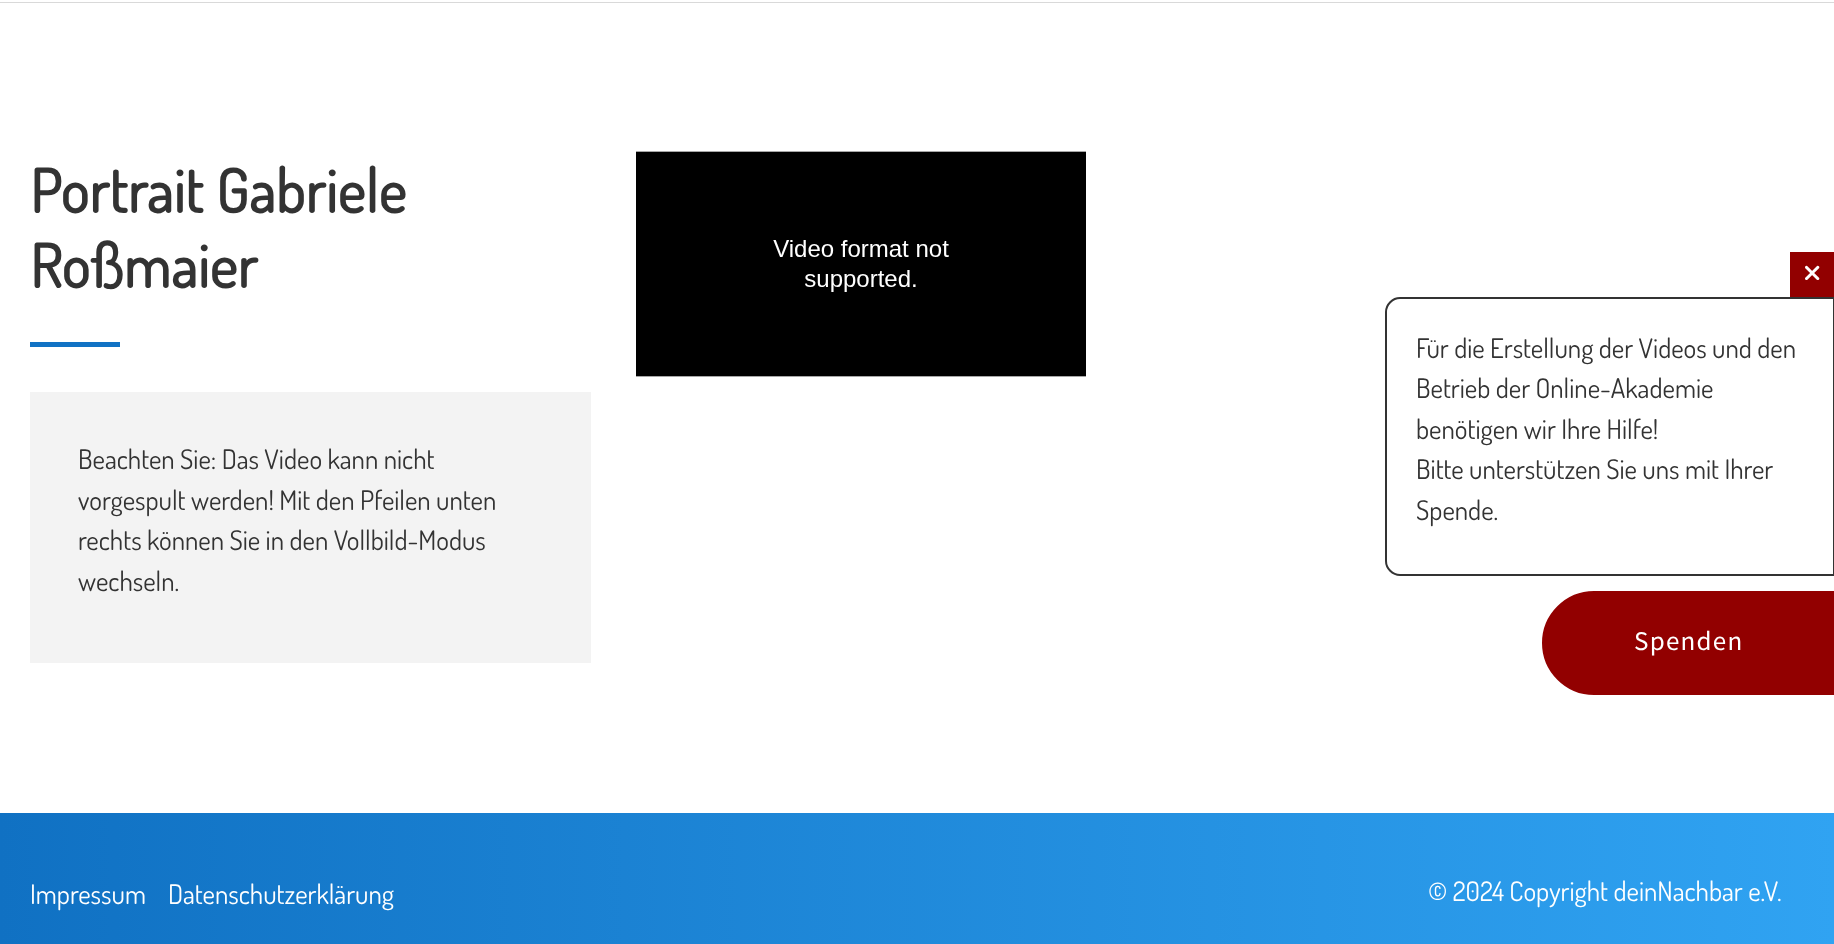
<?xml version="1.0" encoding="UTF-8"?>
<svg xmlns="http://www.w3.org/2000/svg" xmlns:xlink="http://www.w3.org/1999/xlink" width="1834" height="944">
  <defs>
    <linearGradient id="g1" gradientUnits="userSpaceOnUse" x1="0" y1="895" x2="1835" y2="895"><stop offset="0" stop-color="#1071c3" /><stop offset="1" stop-color="#30a3f2" /></linearGradient>
  </defs>
  <rect width="100%" height="100%" fill="#ffffff" />
  <path d="M 0 2 v 1 h 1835 v -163 h -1 v 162 z" fill="#d9d9d9" />
  <rect x="30" y="342" width="90" height="5" fill="#1172c4" />
  <rect x="30" y="392" width="561" height="271" fill="#f3f3f3" />
  <image x="636" y="151" width="450" height="226" xlink:href="image1.png" />
  <rect x="1790" y="252" width="44" height="45" fill="#920000" />
  <path d="M 1400 298 h 434 v 277 h -434 c -7.5 0 -14 -6.5 -14 -14 v -249 c 0 -7.5 6.5 -14 14 -14 z" fill="none" stroke="#333333" stroke-width="2" />
  <path d="M 1594 592 h 240 v 102 h -240 c -28 0 -51 -23 -51 -51 c 0 -28 23 -51 51 -51 z" fill="#920000" stroke="#920000" stroke-width="2" />
  <rect y="813" width="1834" height="131" fill="url(#g1)" />
  <text x="30" y="213" style="font-family: Dosis; font-size: 60px; font-weight: bold; letter-spacing: 0.5px; fill: #333333">Portrait Gabriele</text>
  <text x="30" y="288" style="font-family: Dosis; font-size: 60px; font-weight: bold; letter-spacing: 0.5px; fill: #333333">Roßmaier</text>
  <text x="78" y="469" style="font-family: Dosis; font-size: 27px; fill: #333333">Beachten Sie: Das Video kann nicht</text>
  <text x="78" y="510" style="font-family: Dosis; font-size: 27px; fill: #333333">vorgespult werden! Mit den Pfeilen unten</text>
  <text x="78" y="550" style="font-family: Dosis; font-size: 27px; fill: #333333">rechts können Sie in den Vollbild-Modus</text>
  <text x="78" y="591" style="font-family: Dosis; font-size: 27px; fill: #333333">wechseln.</text>
  <text x="1802" y="287" style="font-family: Dosis; font-size: 51px; fill: #ffffff">×</text>
  <text x="1416" y="358" style="font-family: Dosis; font-size: 27px; fill: #333333">Für die Erstellung der Videos und den</text>
  <text x="1416" y="398" style="font-family: Dosis; font-size: 27px; fill: #333333">Betrieb der Online-Akademie</text>
  <text x="1416" y="439" style="font-family: Dosis; font-size: 27px; fill: #333333">benötigen wir Ihre Hilfe!</text>
  <text x="1416" y="479" style="font-family: Dosis; font-size: 27px; fill: #333333">Bitte unterstützen Sie uns mit Ihrer</text>
  <text x="1416" y="520" style="font-family: Dosis; font-size: 27px; fill: #333333">Spende.</text>
  <text x="1634" y="650" style="font-family: Source Sans Pro; font-size: 27px; letter-spacing: 1.25px; fill: #ffffff">Spenden</text>
  <text x="30" y="904" style="font-family: Dosis; font-size: 27px; fill: #ffffff">Impressum</text>
  <text x="168" y="904" style="font-family: Dosis; font-size: 27px; fill: #ffffff">Datenschutzerklärung</text>
  <text x="1428" y="901" style="font-family: Dosis; font-size: 27px; fill: #ffffff">© 2024 Copyright deinNachbar e.V.</text>
</svg>
